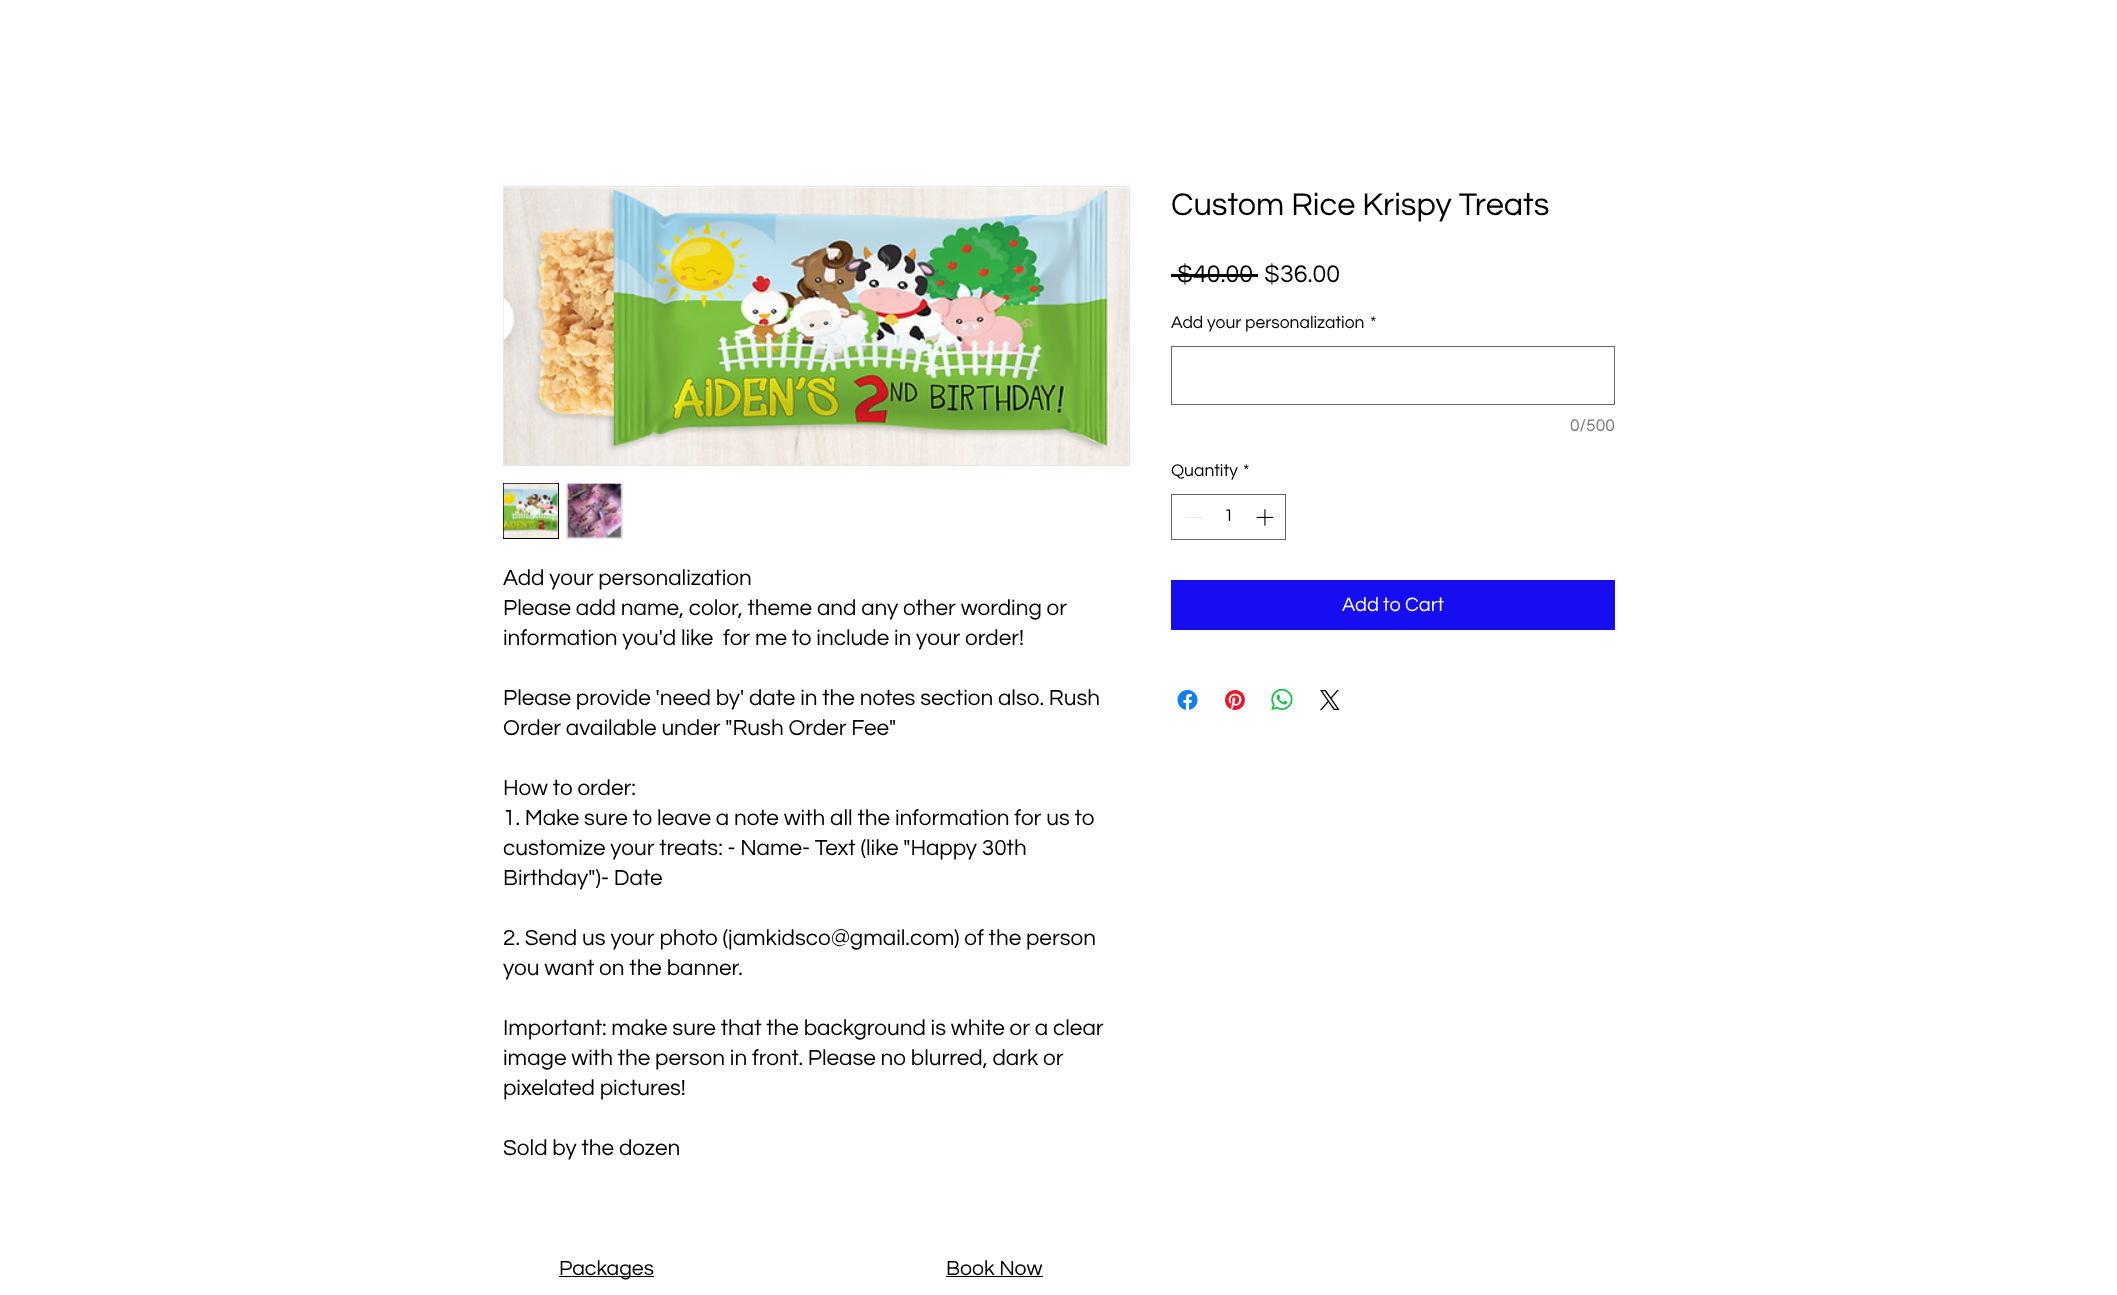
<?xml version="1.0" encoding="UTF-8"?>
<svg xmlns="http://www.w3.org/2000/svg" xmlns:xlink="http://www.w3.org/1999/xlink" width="2117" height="1295">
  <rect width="100%" height="100%" fill="#ffffff" />
  <rect x="1171" y="274" width="87" height="3" fill="#000000" />
  <rect x="1171.5" y="346.5" width="443" height="58" fill="none" stroke="#666666" />
  <rect x="1171.5" y="494.5" width="114" height="45" fill="none" stroke="#666666" />
  <rect x="1186" y="517" width="16" height="1" fill="#e3e3e3" />
  <image x="1256" y="509" width="18" height="17" xlink:href="image1.png" />
  <rect x="1171" y="580" width="444" height="50" fill="#170df2" />
  <image x="1177" y="690" width="21" height="20" xlink:href="image2.png" />
  <image x="1225" y="690" width="20" height="20" xlink:href="image3.png" />
  <image x="1271" y="688" width="22" height="23" xlink:href="image4.png" />
  <image x="1320" y="690" width="20" height="20" xlink:href="image5.png" />
  <rect x="503.5" y="186.5" width="626" height="279" fill="none" stroke="#e8e6e6" />
  <image x="503" y="187" width="626" height="278" xlink:href="image6.png" />
  <rect x="503.5" y="483.5" width="55" height="55" fill="#e8e6e6" stroke="#000000" />
  <image x="503" y="483" width="55" height="55" xlink:href="image7.png" />
  <rect x="566" y="483" width="57" height="56" fill="#e8e6e6" />
  <image x="567" y="483" width="55" height="55" xlink:href="image8.png" />
  <rect x="559" y="1276" width="95" height="1" fill="#000000" />
  <rect x="946" y="1276" width="97" height="1" fill="#000000" />
  <text x="1171" y="215" style="font-family: Questrial; font-size: 32.5px; fill: #000000">Custom Rice Krispy Treats</text>
  <text x="1177" y="282" style="font-family: Questrial; font-size: 25px; fill: #000000">$40.00</text>
  <text x="1264" y="282" style="font-family: Questrial; font-size: 25px; fill: #000000">$36.00</text>
  <text x="1171" y="328" style="font-family: Questrial; font-size: 17.5px; fill: #000000">Add your personalization</text>
  <text x="1370" y="328" style="font-family: Questrial; font-size: 17.5px; fill: #000000">*</text>
  <text x="1570" y="431" style="font-family: Questrial; font-size: 17.5px; fill: #757575">0/500</text>
  <text x="1171" y="476" style="font-family: Questrial; font-size: 17.5px; fill: #000000">Quantity</text>
  <text x="1243" y="476" style="font-family: Questrial; font-size: 17.5px; fill: #000000">*</text>
  <text x="1224" y="521" style="font-family: Questrial; font-size: 17.5px; fill: #000000">1</text>
  <text x="1342" y="611" style="font-family: Questrial; font-size: 20px; fill: #ffffff">Add to Cart</text>
  <text x="503" y="585" style="font-family: Questrial; font-size: 22.5px; fill: #000000">Add your personalization</text>
  <text x="503" y="615" style="font-family: Questrial; font-size: 22.5px; fill: #000000">Please add name, color, theme and any other wording or</text>
  <text x="503" y="645" style="font-family: Questrial; font-size: 22.5px; fill: #000000" xml:space="preserve">information you'd like  for me to include in your order!</text>
  <text x="503" y="705" style="font-family: Questrial; font-size: 22.5px; fill: #000000">Please provide 'need by' date in the notes section also. Rush</text>
  <text x="503" y="735" style="font-family: Questrial; font-size: 22.5px; fill: #000000">Order available under "Rush Order Fee"</text>
  <text x="503" y="795" style="font-family: Questrial; font-size: 22.5px; fill: #000000">How to order:</text>
  <text x="503" y="825" style="font-family: Questrial; font-size: 22.5px; fill: #000000">1. Make sure to leave a note with all the information for us to</text>
  <text x="503" y="855" style="font-family: Questrial; font-size: 22.5px; fill: #000000">customize your treats: - Name- Text (like "Happy 30th</text>
  <text x="503" y="885" style="font-family: Questrial; font-size: 22.5px; fill: #000000">Birthday")- Date</text>
  <text x="503" y="945" style="font-family: Questrial; font-size: 22.5px; fill: #000000">2. Send us your photo (jamkidsco@gmail.com) of the person</text>
  <text x="503" y="975" style="font-family: Questrial; font-size: 22.5px; fill: #000000">you want on the banner.</text>
  <text x="503" y="1035" style="font-family: Questrial; font-size: 22.5px; fill: #000000">Important: make sure that the background is white or a clear</text>
  <text x="503" y="1065" style="font-family: Questrial; font-size: 22.5px; fill: #000000">image with the person in front. Please no blurred, dark or</text>
  <text x="503" y="1095" style="font-family: Questrial; font-size: 22.5px; fill: #000000">pixelated pictures!</text>
  <text x="503" y="1155" style="font-family: Questrial; font-size: 22.5px; fill: #000000">Sold by the dozen</text>
  <text x="559" y="1275" style="font-family: Questrial; font-size: 21.25px; fill: #000000">Packages</text>
  <text x="946" y="1275" style="font-family: Questrial; font-size: 21.25px; fill: #000000">Book Now</text>
</svg>
